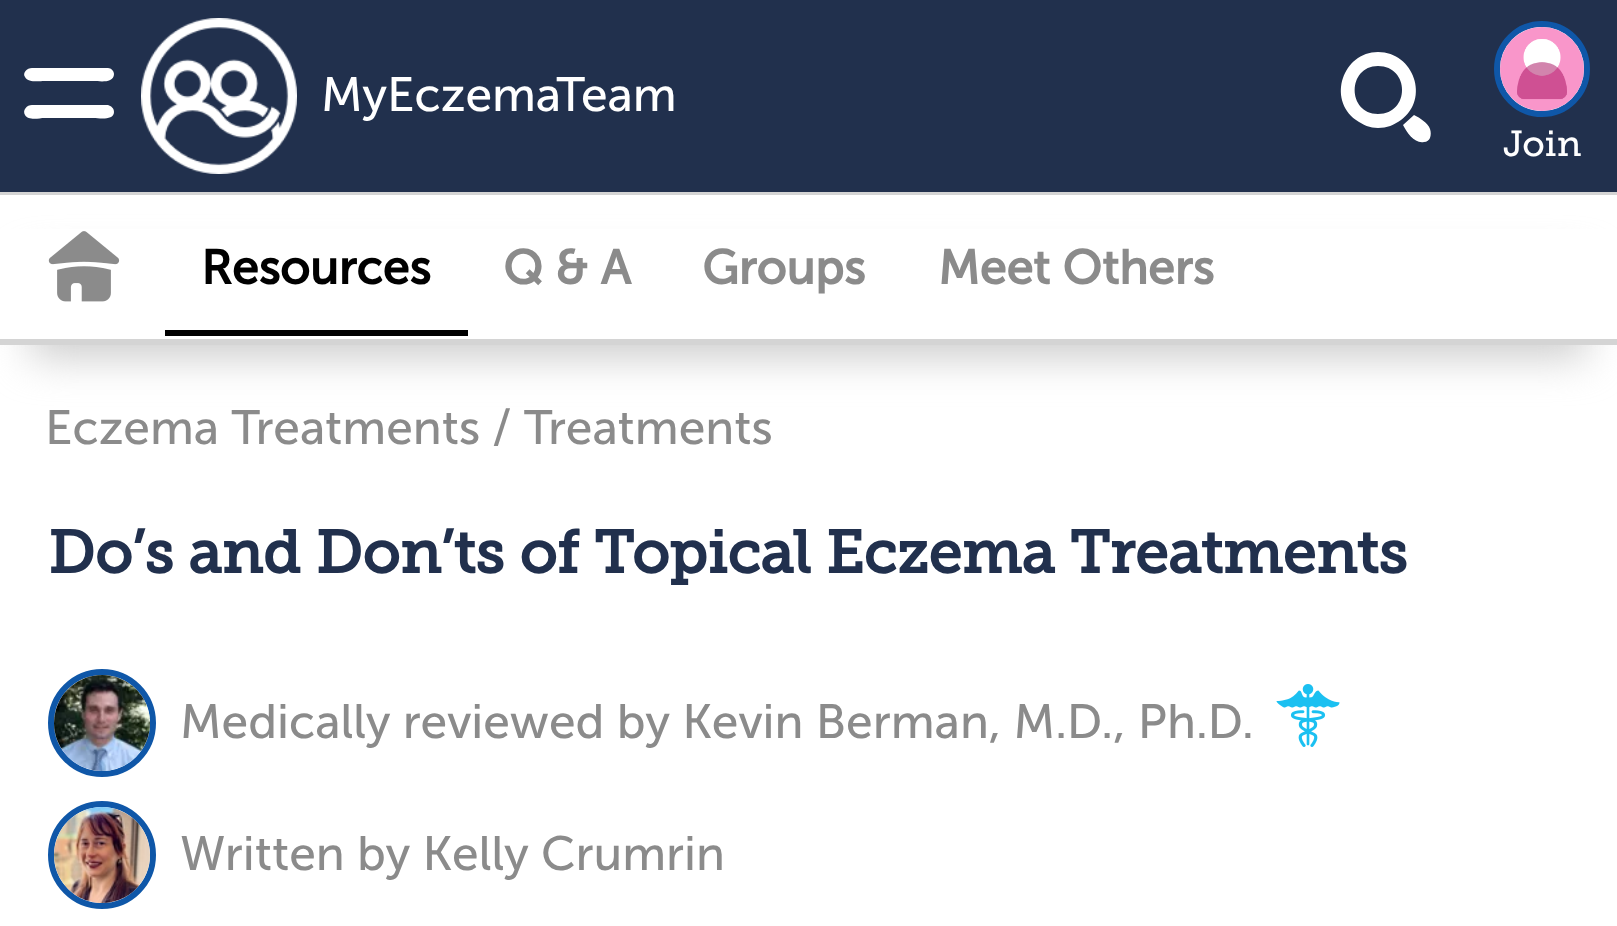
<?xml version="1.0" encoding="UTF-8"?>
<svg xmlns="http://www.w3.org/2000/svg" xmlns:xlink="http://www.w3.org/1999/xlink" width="1617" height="926">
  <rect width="100%" height="100%" fill="#ffffff" />
  <rect width="1617" height="192" fill="#21304d" />
  <path d="M 32 105 h 76 c 3 1 6 3 6 7 c 0 9 -16 6 -20 6 h -50 c -4 0 -16 3 -19 -3 c -3 -5 2 -10 7 -10 z m 0 -37 h 76 c 3 0 6 3 6 6 c 0 10 -16 7 -20 7 h -50 c -4 0 -16 2 -19 -4 c -3 -4 2 -9 7 -9 z" fill="#ffffff" />
  <image x="141" y="18" width="156" height="156" xlink:href="image1.png" />
  <path d="M 1414 115 c 6 3 14 8 16 14 c 1 3 1 6 0 9 c -1 2 -3 4 -6 4 c -9 2 -17 -9 -21 -17 z m -36 -63 c 36 0 52 47 23 68 c -7 5 -14 8 -23 8 c -8 0 -15 -3 -22 -8 c -29 -21 -13 -68 22 -68 z m 0 14 c -31 0 -31 48 0 48 c 32 0 32 -48 0 -48 z" fill="#ffffff" />
  <circle cx="1542" cy="69" r="45" fill="#ffffff" stroke="#0f57a8" stroke-width="6" />
  <image x="1500" y="27" width="84" height="84" xlink:href="image2.png" />
  <rect x="30" y="264" width="1557" height="93" fill="#cccccc" filter="blur(21px)" />
  <rect y="229" width="1617" height="110" fill="#ffffff" />
  <rect y="192" width="1617" height="3" fill="#d4d4d4" />
  <rect y="339" width="1617" height="6" fill="#d4d4d4" />
  <image x="48" y="231" width="72" height="71" xlink:href="image3.png" />
  <rect x="165" y="330" width="303" height="6" fill="#000000" />
  <circle cx="102" cy="723" r="51" fill="none" stroke="#0f57a8" stroke-width="6" />
  <image x="54" y="675" width="96" height="96" xlink:href="image4.png" />
  <image x="1276" y="684" width="64" height="63" xlink:href="image5.png" />
  <circle cx="102" cy="855" r="51" fill="none" stroke="#0f57a8" stroke-width="6" />
  <image x="54" y="807" width="96" height="96" xlink:href="image6.png" />
  <text x="321" y="111" style="font-family: Museo Sans; font-size: 48px; fill: #ffffff">MyEczemaTeam</text>
  <text x="1503" y="156" style="font-family: Museo Slab; font-size: 36px; fill: #ffffff">Join</text>
  <text x="201" y="284" style="font-family: Museo Sans; font-size: 48px; font-weight: bold; fill: #000000">Resources</text>
  <text x="503" y="284" style="font-family: Museo Sans; font-size: 48px; font-weight: bold; fill: #8b8b8b">Q &amp; A</text>
  <text x="702" y="284" style="font-family: Museo Sans; font-size: 48px; font-weight: bold; fill: #8b8b8b">Groups</text>
  <text x="938" y="284" style="font-family: Museo Sans; font-size: 48px; font-weight: bold; fill: #8b8b8b">Meet Others</text>
  <text x="45" y="444" style="font-family: Museo Sans; font-size: 48px; fill: #8b8b8b">Eczema Treatments</text>
  <text x="492" y="444" style="font-family: Museo Sans; font-size: 48px; fill: #8b8b8b">/</text>
  <text x="524" y="444" style="font-family: Museo Sans; font-size: 48px; fill: #8b8b8b">Treatments</text>
  <text x="48" y="573" style="font-family: Museo Slab; font-size: 60px; font-weight: bold; fill: #21304d">Do’s and Don’ts of Topical Eczema Treatments</text>
  <text x="180" y="738" style="font-family: Museo Sans; font-size: 48px; fill: #8b8b8b">Medically reviewed by Kevin Berman, M.D., Ph.D.</text>
  <text x="180" y="870" style="font-family: Museo Sans; font-size: 48px; fill: #8b8b8b">Written by Kelly Crumrin</text>
</svg>
